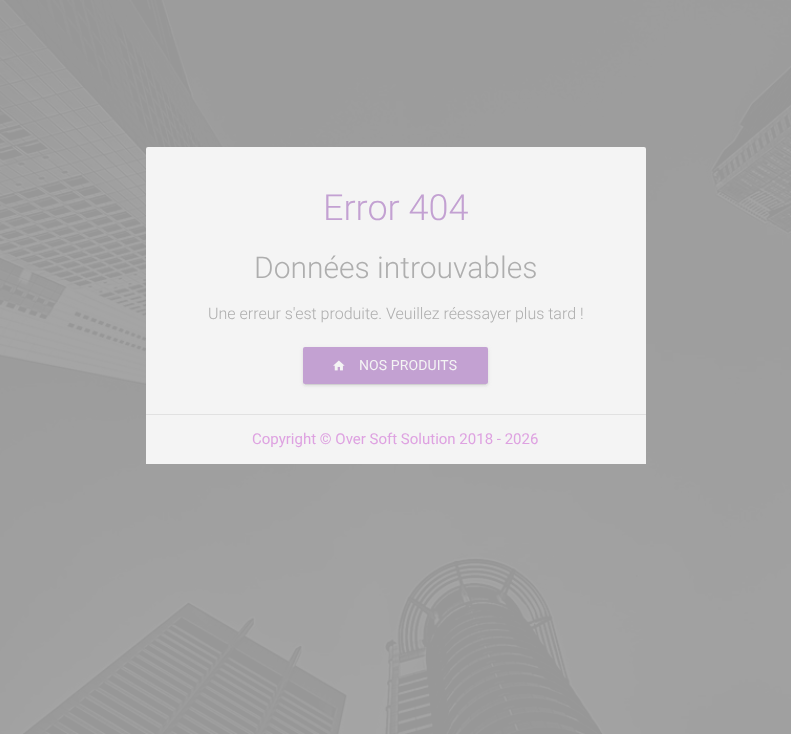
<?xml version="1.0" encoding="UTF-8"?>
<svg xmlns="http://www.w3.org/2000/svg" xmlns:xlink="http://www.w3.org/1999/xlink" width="791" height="734">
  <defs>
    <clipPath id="clip1"><rect x="146" y="414" width="500" height="50" /></clipPath>
  </defs>
  <rect width="100%" height="100%" fill="#ffffff" />
  <image x="0" y="0" width="791" height="734" xlink:href="image1.png" />
  <rect x="146" y="147" width="500" height="317" rx="2" fill="#f4f4f4" />
  <rect x="303" y="348" width="185" height="37" rx="2" fill="#969696" fill-opacity="0.12" filter="blur(2.5px)" />
  <rect x="305" y="352" width="181" height="33" fill="#969696" fill-opacity="0.2" filter="blur(0.5px)" />
  <rect x="303" y="349" width="185" height="37" rx="2" fill="#969696" fill-opacity="0.14" filter="blur(1px)" />
  <rect x="303" y="347" width="185" height="37" rx="2" fill="#c3a1d2" />
  <image x="333" y="360" width="12" height="11" xlink:href="image2.png" />
  <rect x="146" y="462" width="500" height="2" fill="#f4f4f4" />
  <g clip-path="url(#clip1)">
    <path d="M 47 315 h 698 v 248 h -698 z m 99 100 h 500 c 1 0 2 1 2 2 v 50 c 0 1 -1 2 -2 2 h -500 c -1 0 -2 -1 -2 -2 v -50 c 0 -1 1 -2 2 -2 z" fill="#e1e1e1" fill-rule="evenodd" />
  </g>
  <text x="323" y="220" style="font-family: Roboto; font-size: 36px; font-weight: 300; fill: #c3a1d2">Error 404</text>
  <text x="254" y="278" style="font-family: Roboto; font-size: 30px; font-weight: 300; fill: #aeaeae">Données introuvables</text>
  <text x="208" y="319" style="font-family: Roboto; font-size: 16px; font-weight: 300; fill: #aeaeae">Une erreur s'est produite. Veuillez réessayer plus tard !</text>
  <text x="359" y="370" style="font-family: Roboto; font-size: 14px; letter-spacing: 0.1px; fill: #f4f4f4">NOS PRODUITS</text>
  <text x="252" y="444" style="font-family: Roboto; font-size: 15px; fill: #dea2e1">Copyright © Over Soft Solution 2018 - 2026</text>
</svg>
